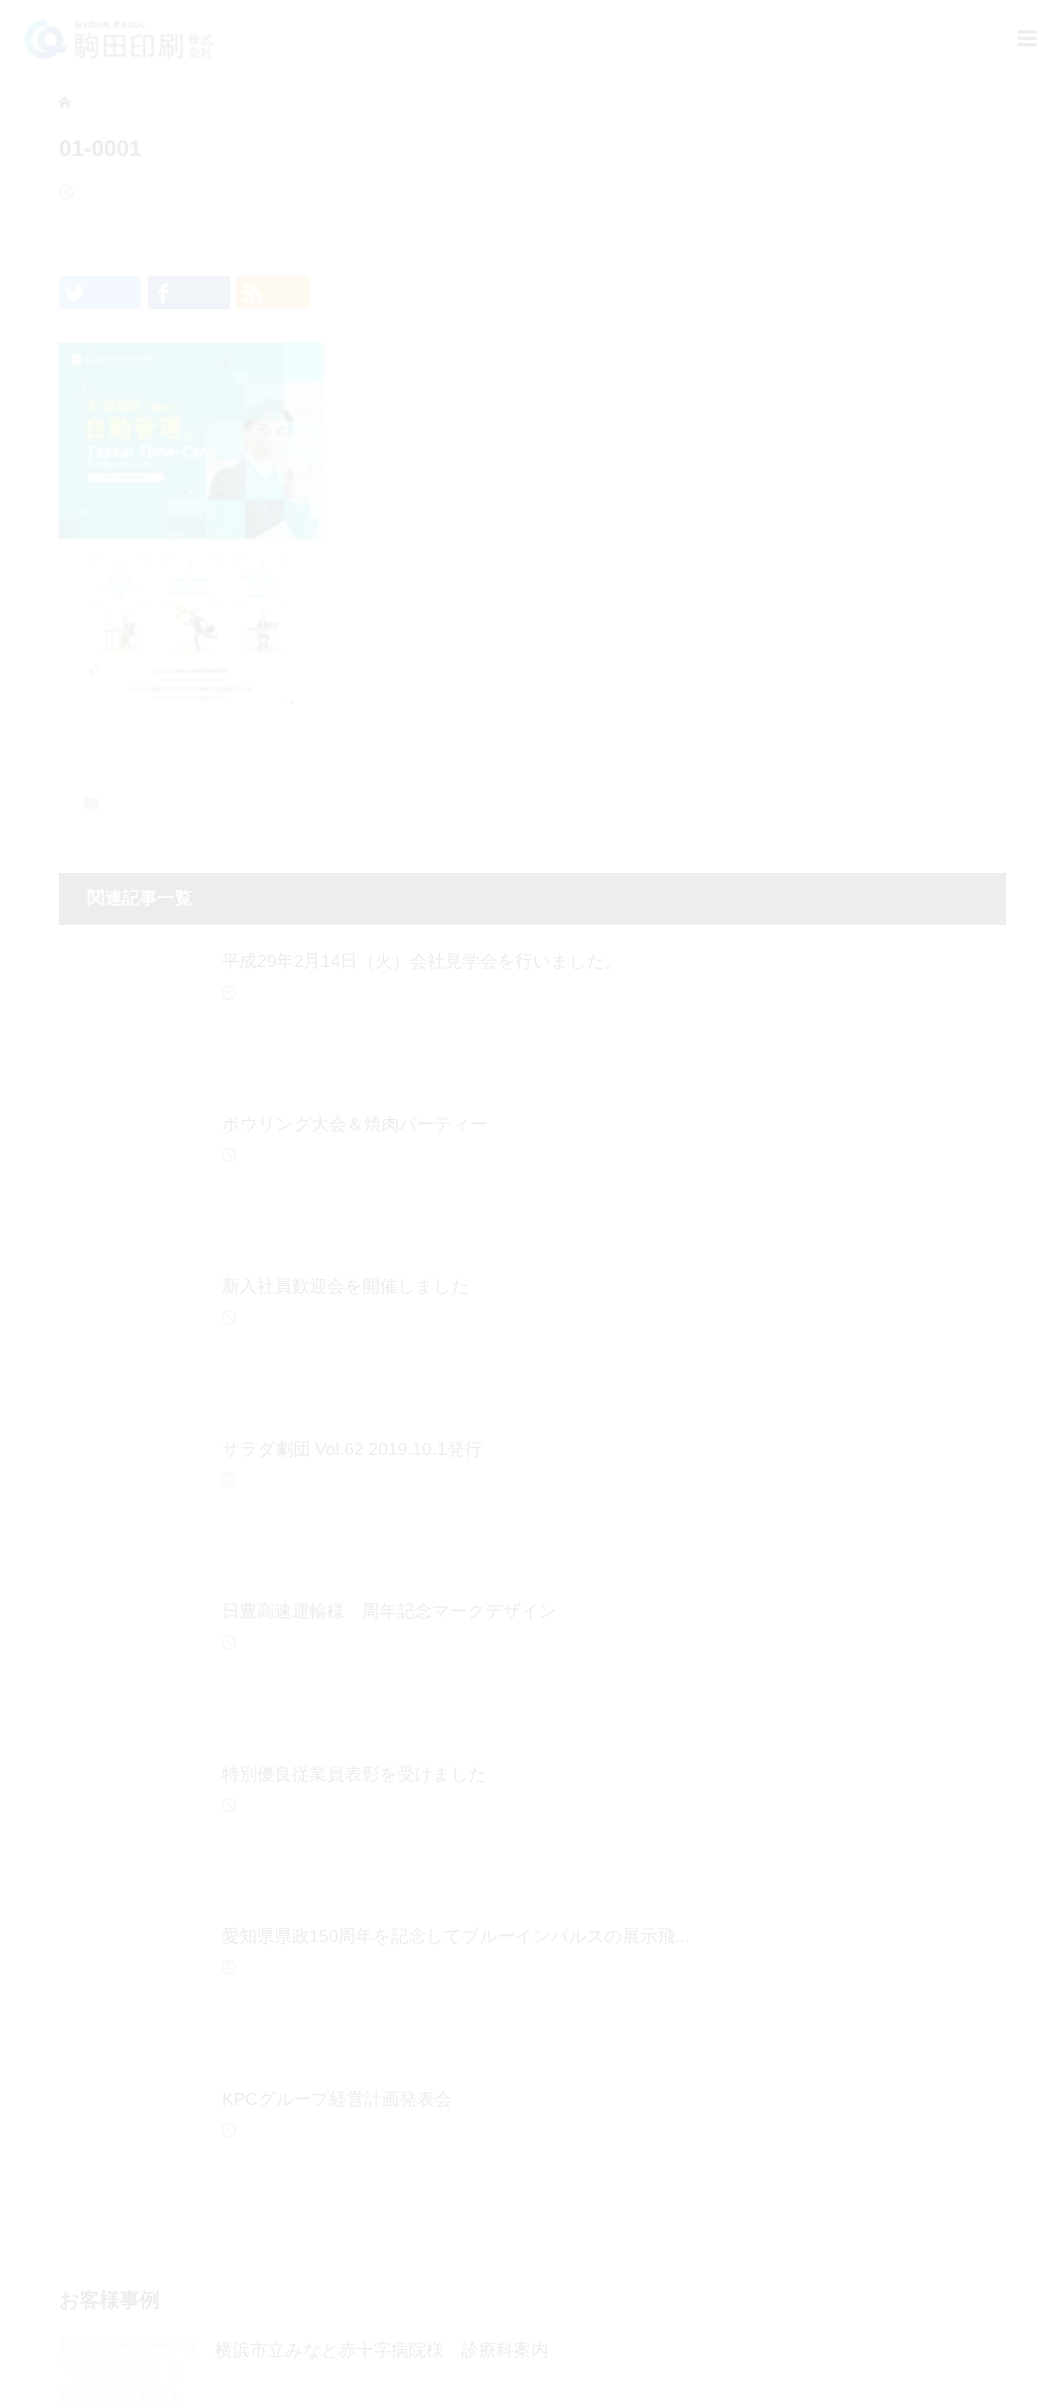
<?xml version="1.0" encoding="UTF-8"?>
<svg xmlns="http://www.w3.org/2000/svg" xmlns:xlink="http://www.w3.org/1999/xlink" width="1064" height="2408">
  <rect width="100%" height="100%" fill="#ffffff" />
  <image x="25" y="20" width="188" height="39" xlink:href="image1.png" />
  <image x="1017" y="30" width="20" height="17" xlink:href="image2.png" />
  <image x="58" y="96" width="14" height="12" xlink:href="image3.png" />
  <image x="58" y="185" width="16" height="15" xlink:href="image4.png" />
  <rect x="59" y="276" width="82" height="33" rx="2.5" fill="#f3f9fe" />
  <image x="65" y="285" width="20" height="17" xlink:href="image5.png" />
  <rect x="148" y="276" width="82" height="33" rx="2.5" fill="#f1f4f8" />
  <image x="158" y="283" width="11" height="20" xlink:href="image6.png" />
  <rect x="236" y="276" width="74" height="33" rx="2.5" fill="#fffaf1" />
  <image x="243" y="284" width="19" height="19" xlink:href="image7.png" />
  <image x="58" y="342" width="266" height="369" xlink:href="image8.png" />
  <image x="83" y="796" width="16" height="14" xlink:href="image9.png" />
  <rect x="59" y="873" width="947" height="52" fill="#ededed" />
  <image x="221" y="985" width="16" height="15" xlink:href="image10.png" />
  <image x="221" y="1147" width="16" height="16" xlink:href="image11.png" />
  <image x="221" y="1310" width="16" height="15" xlink:href="image10.png" />
  <image x="221" y="1472" width="16" height="16" xlink:href="image11.png" />
  <image x="221" y="1635" width="16" height="15" xlink:href="image10.png" />
  <image x="221" y="1797" width="16" height="16" xlink:href="image11.png" />
  <image x="221" y="1960" width="16" height="15" xlink:href="image10.png" />
  <image x="221" y="2122" width="16" height="16" xlink:href="image11.png" />
  <image x="59" y="2336" width="137" height="72" xlink:href="image12.png" />
  <text x="59" y="156" style="font-family: Liberation Sans; font-size: 22.5px; font-weight: bold; fill: #ededed">01-0001</text>
  <text x="87" y="904" style="font-family: WenQuanYi Zen Hei; font-size: 17.5px; font-weight: bold; fill: #ffffff">関連記事一覧</text>
  <text x="222" y="967" style="font-family: WenQuanYi Zen Hei; font-size: 17.5px; font-weight: 500; fill: #ededed">平成</text>
  <text x="257" y="967" style="font-family: Liberation Sans; font-size: 17.5px; fill: #ededed">29</text>
  <text x="276" y="967" style="font-family: WenQuanYi Zen Hei; font-size: 17.5px; font-weight: 500; fill: #ededed">年</text>
  <text x="294" y="967" style="font-family: Liberation Sans; font-size: 17.5px; fill: #ededed">2</text>
  <text x="303" y="967" style="font-family: WenQuanYi Zen Hei; font-size: 17.5px; font-weight: 500; fill: #ededed">月</text>
  <text x="321" y="967" style="font-family: Liberation Sans; font-size: 17.5px; fill: #ededed">14</text>
  <text x="340" y="967" style="font-family: WenQuanYi Zen Hei; font-size: 17.5px; font-weight: 500; fill: #ededed">日（火）会社見学会を行いました。</text>
  <text x="222" y="1130" style="font-family: WenQuanYi Zen Hei; font-size: 17.5px; font-weight: 500; fill: #ededed">ボウリング大会＆焼肉パーティー</text>
  <text x="222" y="1292" style="font-family: WenQuanYi Zen Hei; font-size: 17.5px; font-weight: 500; fill: #ededed">新入社員歓迎会を開催しました</text>
  <text x="222" y="1455" style="font-family: WenQuanYi Zen Hei; font-size: 17.5px; font-weight: 500; fill: #ededed">サラダ劇団</text>
  <text x="315" y="1455" style="font-family: Liberation Sans; font-size: 17.5px; fill: #ededed">Vol.62 2019.10.1</text>
  <text x="447" y="1455" style="font-family: WenQuanYi Zen Hei; font-size: 17.5px; font-weight: 500; fill: #ededed">発行</text>
  <text x="222" y="1617" style="font-family: WenQuanYi Zen Hei; font-size: 17.5px; font-weight: 500; fill: #ededed">日豊高速運輸様　周年記念マークデザイン</text>
  <text x="222" y="1780" style="font-family: WenQuanYi Zen Hei; font-size: 17.5px; font-weight: 500; fill: #ededed">特別優良従業員表彰を受けました</text>
  <text x="222" y="1942" style="font-family: WenQuanYi Zen Hei; font-size: 17.5px; font-weight: 500; fill: #ededed">愛知県県政</text>
  <text x="309" y="1942" style="font-family: Liberation Sans; font-size: 17.5px; fill: #ededed">150</text>
  <text x="338" y="1942" style="font-family: WenQuanYi Zen Hei; font-size: 17.5px; font-weight: 500; fill: #ededed">周年を記念してブルーインパルスの展示飛</text>
  <text x="675" y="1942" style="font-family: Liberation Sans; font-size: 17.5px; fill: #ededed">...</text>
  <text x="222" y="2105" style="font-family: Liberation Sans; font-size: 17.5px; fill: #ededed">KPC</text>
  <text x="258" y="2105" style="font-family: WenQuanYi Zen Hei; font-size: 17.5px; font-weight: 500; fill: #ededed">グループ経営計画発表会</text>
  <text x="59" y="2307" style="font-family: WenQuanYi Zen Hei; font-size: 20px; font-weight: bold; fill: #ededed">お客様事例</text>
  <text x="215" y="2356" style="font-family: WenQuanYi Zen Hei; font-size: 17.5px; font-weight: 500; fill: #ededed">横浜市立みなと赤十字病院様　診療科案内</text>
</svg>
